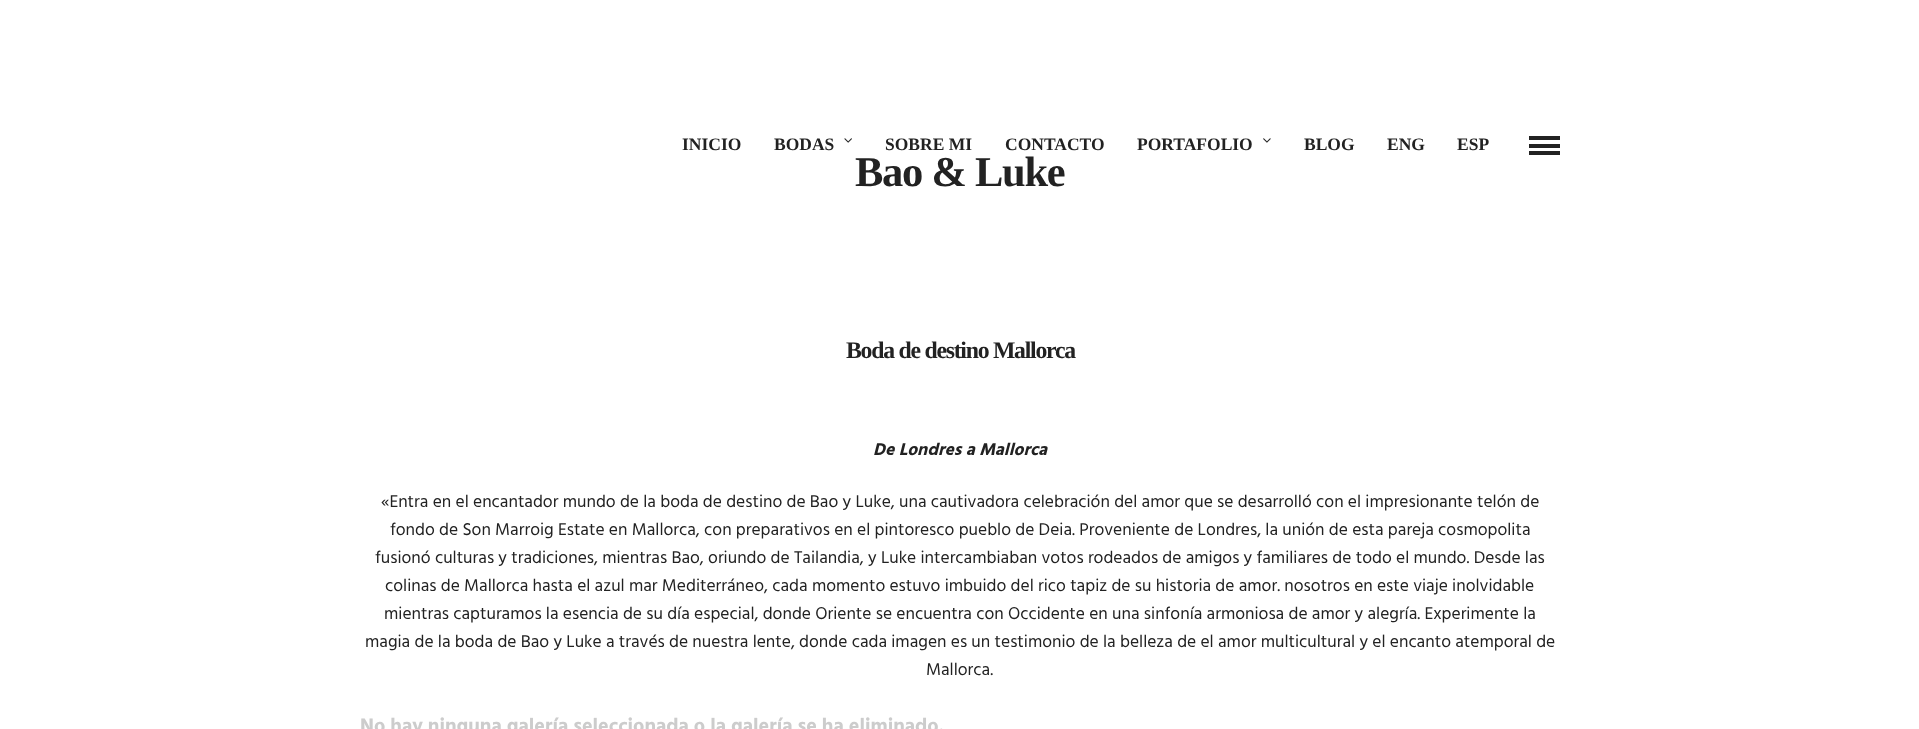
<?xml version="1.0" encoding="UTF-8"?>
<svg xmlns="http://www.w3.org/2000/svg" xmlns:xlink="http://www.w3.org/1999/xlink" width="1919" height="729">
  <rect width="100%" height="100%" fill="#ffffff" />
  <image x="844" y="138" width="8" height="5" xlink:href="image1.png" />
  <image x="1263" y="138" width="8" height="5" xlink:href="image2.png" />
  <rect x="1529" y="136" width="31" height="4" fill="#222222" />
  <rect x="1529" y="144" width="31" height="4" fill="#222222" />
  <rect x="1529" y="151" width="31" height="4" fill="#222222" />
  <text x="682" y="150" style="font-family: Liberation Serif; font-size: 17.5px; font-weight: bold; fill: #222222">INICIO</text>
  <text x="774" y="150" style="font-family: Liberation Serif; font-size: 17.5px; font-weight: bold; fill: #222222">BODAS</text>
  <text x="885" y="150" style="font-family: Liberation Serif; font-size: 17.5px; font-weight: bold; fill: #222222">SOBRE MI</text>
  <text x="1005" y="150" style="font-family: Liberation Serif; font-size: 17.5px; font-weight: bold; fill: #222222">CONTACTO</text>
  <text x="1137" y="150" style="font-family: Liberation Serif; font-size: 17.5px; font-weight: bold; fill: #222222">PORTAFOLIO</text>
  <text x="1304" y="150" style="font-family: Liberation Serif; font-size: 17.5px; font-weight: bold; fill: #222222">BLOG</text>
  <text x="1387" y="150" style="font-family: Liberation Serif; font-size: 17.5px; font-weight: bold; fill: #222222">ENG</text>
  <text x="1457" y="150" style="font-family: Liberation Serif; font-size: 17.5px; font-weight: bold; fill: #222222">ESP</text>
  <text x="855" y="186" style="font-family: Liberation Serif; font-size: 42.5px; font-weight: bold; letter-spacing: -1.25px; fill: #222222">Bao &amp; Luke</text>
  <text x="846" y="358" style="font-family: Liberation Serif; font-size: 23.75px; font-weight: bold; letter-spacing: -1.25px; fill: #222222">Boda de destino Mallorca</text>
  <text x="873" y="455" style="font-family: Hind; font-size: 17.5px; font-weight: bold; font-style: italic; fill: #222222">De Londres a Mallorca</text>
  <text x="381" y="507" style="font-family: Hind; font-size: 17.5px; fill: #222222">«Entra en el encantador mundo de la boda de destino de Bao y Luke, una cautivadora celebración del amor que se desarrolló con el impresionante telón de</text>
  <text x="390" y="535" style="font-family: Hind; font-size: 17.5px; fill: #222222">fondo de Son Marroig Estate en Mallorca, con preparativos en el pintoresco pueblo de Deia. Proveniente de Londres, la unión de esta pareja cosmopolita</text>
  <text x="375" y="563" style="font-family: Hind; font-size: 17.5px; fill: #222222">fusionó culturas y tradiciones, mientras Bao, oriundo de Tailandia, y Luke intercambiaban votos rodeados de amigos y familiares de todo el mundo. Desde las</text>
  <text x="385" y="591" style="font-family: Hind; font-size: 17.5px; fill: #222222">colinas de Mallorca hasta el azul mar Mediterráneo, cada momento estuvo imbuido del rico tapiz de su historia de amor. nosotros en este viaje inolvidable</text>
  <text x="384" y="619" style="font-family: Hind; font-size: 17.5px; fill: #222222">mientras capturamos la esencia de su día especial, donde Oriente se encuentra con Occidente en una sinfonía armoniosa de amor y alegría. Experimente la</text>
  <text x="365" y="647" style="font-family: Hind; font-size: 17.5px; fill: #222222">magia de la boda de Bao y Luke a través de nuestra lente, donde cada imagen es un testimonio de la belleza de el amor multicultural y el encanto atemporal de</text>
  <text x="926" y="675" style="font-family: Hind; font-size: 17.5px; fill: #222222">Mallorca.</text>
  <text x="360" y="732" style="font-family: Hind; font-size: 20px; font-weight: bold; fill: #cccccc">No hay ninguna galería seleccionada o la galería se ha eliminado.</text>
</svg>
